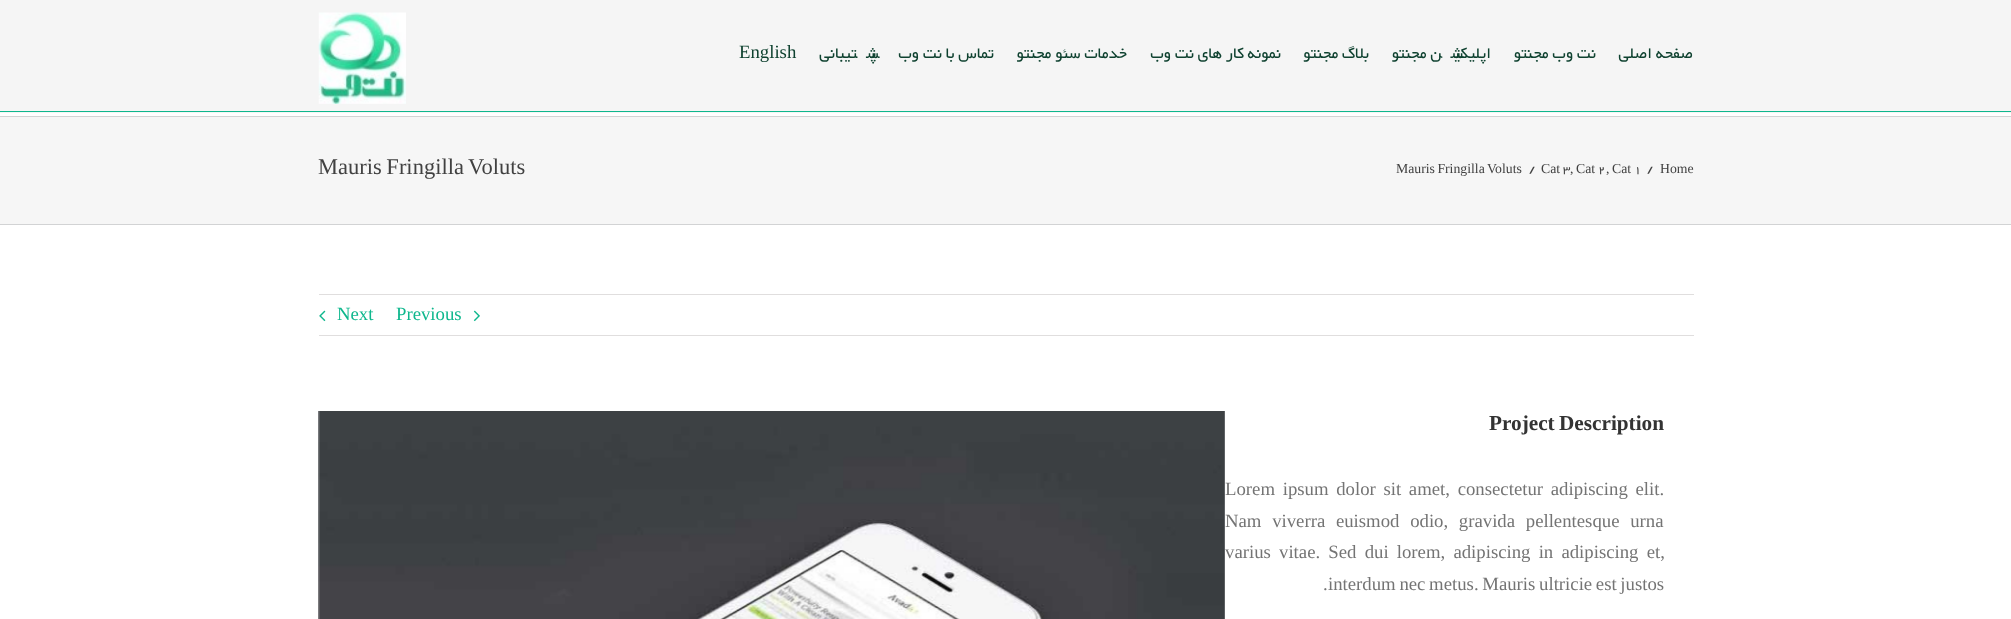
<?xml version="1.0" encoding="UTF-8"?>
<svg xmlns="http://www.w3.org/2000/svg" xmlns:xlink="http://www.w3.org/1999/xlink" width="2011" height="619">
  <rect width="100%" height="100%" fill="#ffffff" />
  <rect width="2011" height="113" fill="#f5f5f5" />
  <rect y="111" width="2011" height="1" fill="#0eb78d" />
  <image x="318" y="12" width="88" height="92" xlink:href="image1.png" />
  <rect y="117" width="2011" height="107" fill="#f6f6f6" />
  <rect y="116" width="2011" height="1" fill="#d2d3d4" />
  <rect y="224" width="2011" height="1" fill="#d2d3d4" />
  <rect x="319" y="294" width="1375" height="1" fill="#e0dede" />
  <rect x="319" y="335" width="1375" height="1" fill="#e0dede" />
  <image x="319" y="310" width="7" height="12" xlink:href="image2.png" />
  <image x="473" y="310" width="7" height="12" xlink:href="image3.png" />
  <image x="318" y="411" width="907" height="208" xlink:href="image4.png" />
  <text x="739" y="58" style="font-family: Liberation Serif; font-size: 18.75px; fill: #0f4230">English</text>
  <text x="876" y="58" style="font-family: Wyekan; font-size: 18.75px; direction: rtl; fill: #0f4230">پشتیبانی</text>
  <text x="994" y="58" style="font-family: Wyekan; font-size: 18.75px; direction: rtl; fill: #0f4230">تماس با نت وب</text>
  <text x="1127" y="58" style="font-family: Wyekan; font-size: 18.75px; direction: rtl; fill: #0f4230">خدمات سئو مجنتو</text>
  <text x="1281" y="58" style="font-family: Wyekan; font-size: 18.75px; direction: rtl; fill: #0f4230">نمونه کار های نت وب</text>
  <text x="1369" y="58" style="font-family: Wyekan; font-size: 18.75px; direction: rtl; fill: #0f4230">بلاگ مجنتو</text>
  <text x="1491" y="58" style="font-family: Wyekan; font-size: 18.75px; direction: rtl; fill: #0f4230">اپلیکیشن مجنتو</text>
  <text x="1596" y="58" style="font-family: Wyekan; font-size: 18.75px; direction: rtl; fill: #0f4230">نت وب مجنتو</text>
  <text x="1693" y="58" style="font-family: Wyekan; font-size: 18.75px; direction: rtl; fill: #0f4230">صفحه اصلی</text>
  <text x="318" y="174" word-spacing="-1" style="font-family: Liberation Serif; font-size: 22.5px; fill: #414141">Mauris Fringilla Voluts</text>
  <text x="1396" y="173" word-spacing="-1" style="font-family: Liberation Serif; font-size: 13.75px; fill: #414141">Mauris Fringilla Voluts</text>
  <text x="1529" y="173" style="font-family: Wyekan; font-size: 13.75px; fill: #414141">/</text>
  <text x="1541" y="173" style="font-family: Liberation Serif; font-size: 13.75px; fill: #414141">Cat</text>
  <text x="1563" y="173" style="font-family: Wyekan; font-size: 13.75px; fill: #414141">3</text>
  <text x="1570" y="173" style="font-family: Liberation Serif; font-size: 13.75px; fill: #414141">,</text>
  <text x="1576" y="173" style="font-family: Liberation Serif; font-size: 13.75px; fill: #414141">Cat</text>
  <text x="1598" y="173" style="font-family: Wyekan; font-size: 13.75px; fill: #414141">2</text>
  <text x="1606" y="173" style="font-family: Liberation Serif; font-size: 13.75px; fill: #414141">,</text>
  <text x="1612" y="173" style="font-family: Liberation Serif; font-size: 13.75px; fill: #414141">Cat</text>
  <text x="1634" y="173" style="font-family: Wyekan; font-size: 13.75px; fill: #414141">1</text>
  <text x="1647" y="173" style="font-family: Wyekan; font-size: 13.75px; fill: #414141">/</text>
  <text x="1660" y="173" style="font-family: Liberation Serif; font-size: 13.75px; fill: #414141">Home</text>
  <text x="337" y="320" style="font-family: Liberation Serif; font-size: 18.75px; fill: #0eb78d">Next</text>
  <text x="396" y="320" style="font-family: Liberation Serif; font-size: 18.75px; fill: #0eb78d">Previous</text>
  <text x="1489" y="430" word-spacing="-1" style="font-family: Liberation Serif; font-size: 21.25px; font-weight: bold; fill: #333333">Project Description</text>
  <text x="1225" y="495" word-spacing="3" style="font-family: Liberation Serif; font-size: 18.75px; fill: #747474">Lorem ipsum dolor sit amet, consectetur adipiscing elit.</text>
  <text x="1225" y="527" word-spacing="6" style="font-family: Liberation Serif; font-size: 18.75px; fill: #747474">Nam viverra euismod odio, gravida pellentesque urna</text>
  <text x="1225" y="558" word-spacing="3.5" style="font-family: Liberation Serif; font-size: 18.75px; fill: #747474">varius vitae. Sed dui lorem, adipiscing in adipiscing et,</text>
  <text x="1323" y="590" style="font-family: Liberation Serif; font-size: 18.75px; fill: #747474">.</text>
  <text x="1328" y="590" word-spacing="-1" style="font-family: Liberation Serif; font-size: 18.75px; fill: #747474">interdum nec metus. Mauris ultricie est justos</text>
</svg>
